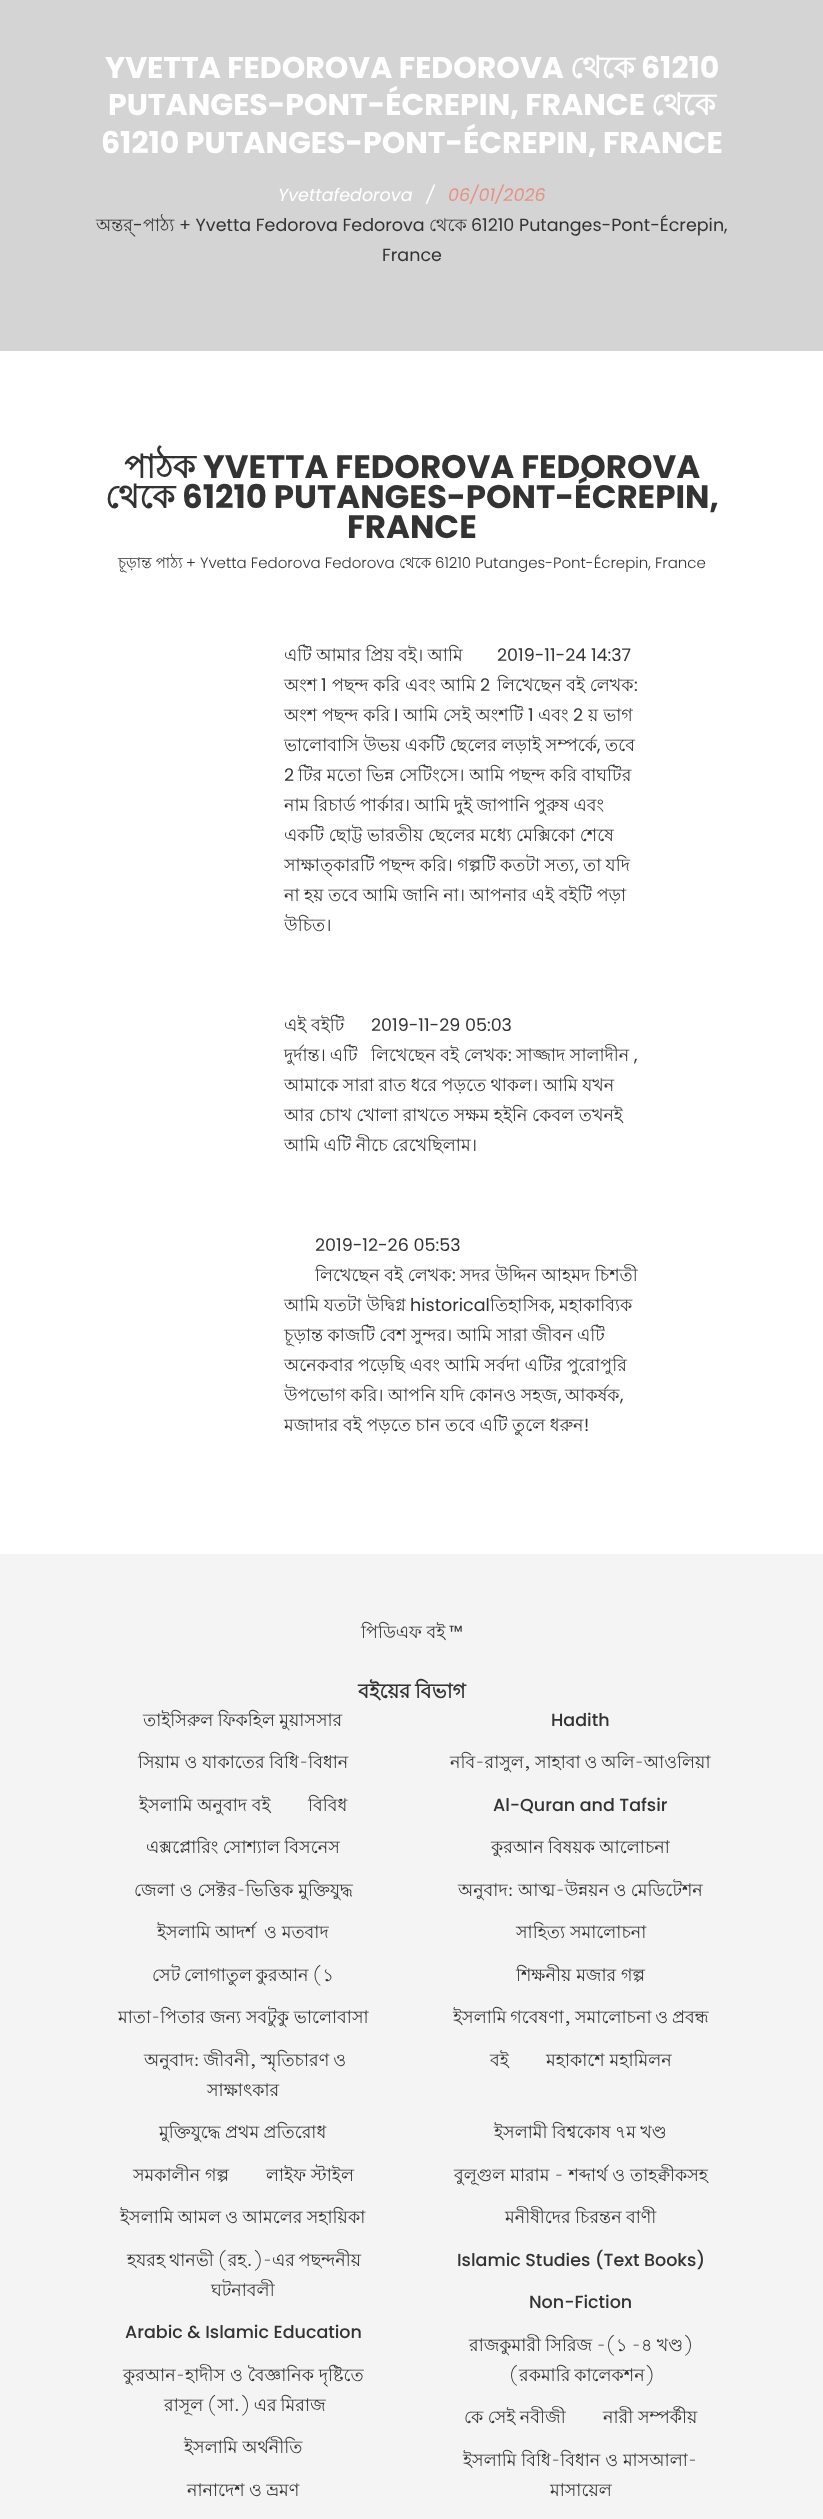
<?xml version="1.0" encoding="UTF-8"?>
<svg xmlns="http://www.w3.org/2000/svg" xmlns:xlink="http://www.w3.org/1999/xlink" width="823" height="2519">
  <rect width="100%" height="100%" fill="#ffffff" />
  <rect width="823" height="351" fill="#d4d4d4" />
  <rect y="1554" width="823" height="965" fill="#f4f4f4" />
  <text x="105" y="78" style="font-family: Poppins; font-size: 30px; font-weight: bold; fill: #ffffff">YVETTA FEDOROVA FEDOROVA</text>
  <text x="570" y="78" style="font-family: Lohit Bengali; font-size: 30px; font-weight: bold; fill: #ffffff">থেকে</text>
  <text x="641" y="78" style="font-family: Poppins; font-size: 30px; font-weight: bold; fill: #ffffff">61210</text>
  <text x="108" y="115" style="font-family: Poppins; font-size: 30px; font-weight: bold; fill: #ffffff">PUTANGES-PONT-ÉCREPIN, FRANCE</text>
  <text x="651" y="115" style="font-family: Lohit Bengali; font-size: 30px; font-weight: bold; fill: #ffffff">থেকে</text>
  <text x="101" y="153" style="font-family: Poppins; font-size: 30px; font-weight: bold; fill: #ffffff">61210 PUTANGES-PONT-ÉCREPIN, FRANCE</text>
  <text x="278" y="201" style="font-family: Poppins; font-size: 17.5px; font-style: italic; fill: #ffffff">Yvettafedorova</text>
  <text x="426" y="201" style="font-family: Poppins; font-size: 17.5px; font-style: italic; fill: #ffffff">/</text>
  <text x="448" y="201" style="font-family: Poppins; font-size: 17.5px; font-style: italic; fill: #e59285">06/01/2026</text>
  <text x="96" y="231" style="font-family: Lohit Bengali; font-size: 17.5px; fill: #333333">অন্তর্</text>
  <text x="133" y="231" style="font-family: Poppins; font-size: 17.5px; fill: #333333">-</text>
  <text x="143" y="231" style="font-family: Lohit Bengali; font-size: 17.5px; fill: #333333">পাঠ্য</text>
  <text x="179" y="231" style="font-family: Poppins; font-size: 17.5px; fill: #333333">+ Yvetta Fedorova Fedorova</text>
  <text x="429" y="231" style="font-family: Lohit Bengali; font-size: 17.5px; fill: #333333">থেকে</text>
  <text x="471" y="231" style="font-family: Poppins; font-size: 17.5px; fill: #333333">61210 Putanges-Pont-Écrepin,</text>
  <text x="382" y="261" style="font-family: Poppins; font-size: 17.5px; fill: #333333">France</text>
  <text x="124" y="478" style="font-family: Lohit Bengali; font-size: 32.5px; font-weight: bold; fill: #333333">পাঠক</text>
  <text x="203" y="478" style="font-family: Poppins; font-size: 32.5px; font-weight: bold; fill: #333333">YVETTA FEDOROVA FEDOROVA</text>
  <text x="105" y="508" style="font-family: Lohit Bengali; font-size: 32.5px; font-weight: bold; fill: #333333">থেকে</text>
  <text x="182" y="508" style="font-family: Poppins; font-size: 32.5px; font-weight: bold; fill: #333333">61210 PUTANGES-PONT-ÉCREPIN,</text>
  <text x="347" y="538" style="font-family: Poppins; font-size: 32.5px; font-weight: bold; fill: #333333">FRANCE</text>
  <text x="118" y="568" style="font-family: Lohit Bengali; font-size: 15px; fill: #333333">চূড়ান্ত পাঠ্য</text>
  <text x="186" y="568" style="font-family: Poppins; font-size: 15px; font-weight: 300; fill: #333333">+ Yvetta Fedorova Fedorova</text>
  <text x="399" y="568" style="font-family: Lohit Bengali; font-size: 15px; fill: #333333">থেকে</text>
  <text x="435" y="568" style="font-family: Poppins; font-size: 15px; font-weight: 300; fill: #333333">61210 Putanges-Pont-Écrepin, France</text>
  <text x="284" y="661" word-spacing="-0.5" style="font-family: Lohit Bengali; font-size: 17.5px; fill: #333333">এটি আমার প্রিয় বই। আমি</text>
  <text x="284" y="691" style="font-family: Lohit Bengali; font-size: 17.5px; fill: #333333">অংশ</text>
  <text x="321" y="691" style="font-family: Poppins; font-size: 17.5px; fill: #333333">1</text>
  <text x="332" y="691" style="font-family: Lohit Bengali; font-size: 17.5px; fill: #333333">পছন্দ করি এবং আমি</text>
  <text x="480" y="691" style="font-family: Poppins; font-size: 17.5px; fill: #333333">2</text>
  <text x="284" y="721" style="font-family: Lohit Bengali; font-size: 17.5px; fill: #333333">অংশ পছন্দ করি</text>
  <text x="394" y="721" style="font-family: Poppins; font-size: 17.5px; fill: #333333">I</text>
  <text x="403" y="721" style="font-family: Lohit Bengali; font-size: 17.5px; fill: #333333">আমি সেই অংশটি</text>
  <text x="528" y="721" style="font-family: Poppins; font-size: 17.5px; fill: #333333">1</text>
  <text x="538" y="721" style="font-family: Lohit Bengali; font-size: 17.5px; fill: #333333">এবং</text>
  <text x="573" y="721" style="font-family: Poppins; font-size: 17.5px; fill: #333333">2</text>
  <text x="588" y="721" style="font-family: Lohit Bengali; font-size: 17.5px; fill: #333333">য় ভাগ</text>
  <text x="284" y="751" word-spacing="-0.25" style="font-family: Lohit Bengali; font-size: 17.5px; fill: #333333">ভালোবাসি উভয় একটি ছেলের লড়াই সম্পর্কে</text>
  <text x="597" y="751" style="font-family: Poppins; font-size: 17.5px; fill: #333333">,</text>
  <text x="605" y="751" style="font-family: Lohit Bengali; font-size: 17.5px; fill: #333333">তবে</text>
  <text x="284" y="781" style="font-family: Poppins; font-size: 17.5px; fill: #333333">2</text>
  <text x="298" y="781" word-spacing="-0.25" style="font-family: Lohit Bengali; font-size: 17.5px; fill: #333333">টির মতো ভিন্ন সেটিংসে। আমি পছন্দ করি বাঘটির</text>
  <text x="284" y="811" word-spacing="-0.5" style="font-family: Lohit Bengali; font-size: 17.5px; fill: #333333">নাম রিচার্ড পার্কার। আমি দুই জাপানি পুরুষ এবং</text>
  <text x="284" y="841" word-spacing="-0.25" style="font-family: Lohit Bengali; font-size: 17.5px; fill: #333333">একটি ছোট্ট ভারতীয় ছেলের মধ্যে মেক্সিকো শেষে</text>
  <text x="284" y="871" word-spacing="-0.5" style="font-family: Lohit Bengali; font-size: 17.5px; fill: #333333">সাক্ষাত্কারটি পছন্দ করি। গল্পটি কতটা সত্য</text>
  <text x="575" y="871" style="font-family: Poppins; font-size: 17.5px; fill: #333333">,</text>
  <text x="583" y="871" word-spacing="-0.5" style="font-family: Lohit Bengali; font-size: 17.5px; fill: #333333">তা যদি</text>
  <text x="284" y="901" word-spacing="-0.25" style="font-family: Lohit Bengali; font-size: 17.5px; fill: #333333">না হয় তবে আমি জানি না। আপনার এই বইটি পড়া</text>
  <text x="284" y="931" style="font-family: Lohit Bengali; font-size: 17.5px; fill: #333333">উচিত।</text>
  <text x="497" y="661" style="font-family: Poppins; font-size: 17.5px; fill: #333333">2019-11-24 14:37</text>
  <text x="497" y="691" word-spacing="-0.25" style="font-family: Lohit Bengali; font-size: 17.5px; fill: #333333">লিখেছেন বই লেখক</text>
  <text x="634" y="691" style="font-family: Poppins; font-size: 17.5px; fill: #333333">:</text>
  <text x="284" y="1031" word-spacing="-0.25" style="font-family: Lohit Bengali; font-size: 17.5px; fill: #333333">এই বইটি</text>
  <text x="284" y="1061" word-spacing="-1" style="font-family: Lohit Bengali; font-size: 17.5px; fill: #333333">দুর্দান্ত। এটি</text>
  <text x="284" y="1091" word-spacing="-0.5" style="font-family: Lohit Bengali; font-size: 17.5px; fill: #333333">আমাকে সারা রাত ধরে পড়তে থাকল। আমি যখন</text>
  <text x="284" y="1121" word-spacing="-0.25" style="font-family: Lohit Bengali; font-size: 17.5px; fill: #333333">আর চোখ খোলা রাখতে সক্ষম হইনি কেবল তখনই</text>
  <text x="284" y="1151" word-spacing="-0.5" style="font-family: Lohit Bengali; font-size: 17.5px; fill: #333333">আমি এটি নীচে রেখেছিলাম।</text>
  <text x="371" y="1031" style="font-family: Poppins; font-size: 17.5px; fill: #333333">2019-11-29 05:03</text>
  <text x="371" y="1061" word-spacing="-0.25" style="font-family: Lohit Bengali; font-size: 17.5px; fill: #333333">লিখেছেন বই লেখক</text>
  <text x="508" y="1061" style="font-family: Poppins; font-size: 17.5px; fill: #333333">:</text>
  <text x="516" y="1061" word-spacing="-0.25" style="font-family: Lohit Bengali; font-size: 17.5px; fill: #333333">সাজ্জাদ সালাদীন</text>
  <text x="634" y="1061" style="font-family: Poppins; font-size: 17.5px; fill: #333333">,</text>
  <text x="315" y="1251" style="font-family: Poppins; font-size: 17.5px; fill: #333333">2019-12-26 05:53</text>
  <text x="315" y="1281" word-spacing="-0.25" style="font-family: Lohit Bengali; font-size: 17.5px; fill: #333333">লিখেছেন বই লেখক</text>
  <text x="452" y="1281" style="font-family: Poppins; font-size: 17.5px; fill: #333333">:</text>
  <text x="460" y="1281" word-spacing="-0.25" style="font-family: Lohit Bengali; font-size: 17.5px; fill: #333333">সদর উদ্দিন আহমদ চিশতী</text>
  <text x="284" y="1311" word-spacing="-0.25" style="font-family: Lohit Bengali; font-size: 17.5px; fill: #333333">আমি যতটা উদ্বিগ্ন</text>
  <text x="410" y="1311" style="font-family: Poppins; font-size: 17.5px; fill: #333333">historical</text>
  <text x="490" y="1311" style="font-family: Lohit Bengali; font-size: 17.5px; fill: #333333">তিহাসিক</text>
  <text x="551" y="1311" style="font-family: Poppins; font-size: 17.5px; fill: #333333">,</text>
  <text x="559" y="1311" style="font-family: Lohit Bengali; font-size: 17.5px; fill: #333333">মহাকাব্যিক</text>
  <text x="284" y="1341" word-spacing="-0.5" style="font-family: Lohit Bengali; font-size: 17.5px; fill: #333333">চূড়ান্ত কাজটি বেশ সুন্দর। আমি সারা জীবন এটি</text>
  <text x="284" y="1371" word-spacing="-0.25" style="font-family: Lohit Bengali; font-size: 17.5px; fill: #333333">অনেকবার পড়েছি এবং আমি সর্বদা এটির পুরোপুরি</text>
  <text x="284" y="1401" word-spacing="-0.5" style="font-family: Lohit Bengali; font-size: 17.5px; fill: #333333">উপভোগ করি। আপনি যদি কোনও সহজ</text>
  <text x="558" y="1401" style="font-family: Poppins; font-size: 17.5px; fill: #333333">,</text>
  <text x="565" y="1401" style="font-family: Lohit Bengali; font-size: 17.5px; fill: #333333">আকর্ষক</text>
  <text x="620" y="1401" style="font-family: Poppins; font-size: 17.5px; fill: #333333">,</text>
  <text x="284" y="1431" word-spacing="-0.25" style="font-family: Lohit Bengali; font-size: 17.5px; fill: #333333">মজাদার বই পড়তে চান তবে এটি তুলে ধরুন</text>
  <text x="584" y="1431" style="font-family: Poppins; font-size: 17.5px; fill: #333333">!</text>
  <text x="361" y="1638" word-spacing="-0.25" style="font-family: Lohit Bengali; font-size: 17.5px; fill: #333333">পিডিএফ বই</text>
  <text x="449" y="1638" style="font-family: Poppins; font-size: 17.5px; fill: #333333">™</text>
  <text x="358" y="1698" word-spacing="-1" style="font-family: Lohit Bengali; font-size: 20px; font-weight: bold; fill: #333333">বইয়ের বিভাগ</text>
  <text x="143" y="1726" word-spacing="-0.5" style="font-family: Lohit Bengali; font-size: 17.5px; fill: #333333">তাইসিরুল ফিকহিল মুয়াসসার</text>
  <text x="138" y="1768" style="font-family: Lohit Bengali; font-size: 17.5px; fill: #333333">সিয়াম ও যাকাতের বিধি-বিধান</text>
  <text x="139" y="1811" style="font-family: Lohit Bengali; font-size: 17.5px; fill: #333333">ইসলামি অনুবাদ বই</text>
  <text x="308" y="1811" style="font-family: Lohit Bengali; font-size: 17.5px; fill: #333333">বিবিধ</text>
  <text x="146" y="1853" word-spacing="-0.5" style="font-family: Lohit Bengali; font-size: 17.5px; fill: #333333">এক্সপ্লোরিং সোশ্যাল বিসনেস</text>
  <text x="134" y="1896" style="font-family: Lohit Bengali; font-size: 17.5px; fill: #333333">জেলা ও সেক্টর-ভিত্তিক মুক্তিযুদ্ধ</text>
  <text x="157" y="1938" style="font-family: Lohit Bengali; font-size: 17.5px; fill: #333333">ইসলামি আদর্শ</text>
  <text x="264" y="1938" style="font-family: Lohit Bengali; font-size: 17.5px; fill: #333333">ও মতবাদ</text>
  <text x="152" y="1981" word-spacing="-1" style="font-family: Lohit Bengali; font-size: 17.5px; fill: #333333">সেট লোগাতুল কুরআন (১</text>
  <text x="118" y="2023" style="font-family: Lohit Bengali; font-size: 17.5px; fill: #333333">মাতা-পিতার জন্য সবটুকু ভালোবাসা</text>
  <text x="144" y="2066" word-spacing="-1" style="font-family: Lohit Bengali; font-size: 17.5px; fill: #333333">অনুবাদ: জীবনী, স্মৃতিচারণ ও</text>
  <text x="207" y="2096" style="font-family: Lohit Bengali; font-size: 17.5px; fill: #333333">সাক্ষাৎকার</text>
  <text x="551" y="1726" style="font-family: Poppins; font-size: 17.5px; font-weight: 500; fill: #333333">Hadith</text>
  <text x="450" y="1768" word-spacing="-1" style="font-family: Lohit Bengali; font-size: 17.5px; fill: #333333">নবি-রাসুল, সাহাবা ও অলি-আওলিয়া</text>
  <text x="493" y="1811" style="font-family: Poppins; font-size: 17.5px; font-weight: 500; fill: #333333">Al-Quran and Tafsir</text>
  <text x="491" y="1853" word-spacing="-0.5" style="font-family: Lohit Bengali; font-size: 17.5px; fill: #333333">কুরআন বিষয়ক আলোচনা</text>
  <text x="458" y="1896" word-spacing="-0.5" style="font-family: Lohit Bengali; font-size: 17.5px; fill: #333333">অনুবাদ: আত্ম-উন্নয়ন ও মেডিটেশন</text>
  <text x="516" y="1938" style="font-family: Lohit Bengali; font-size: 17.5px; fill: #333333">সাহিত্য সমালোচনা</text>
  <text x="516" y="1981" style="font-family: Lohit Bengali; font-size: 17.5px; fill: #333333">শিক্ষনীয় মজার গল্প</text>
  <text x="453" y="2023" word-spacing="-1" style="font-family: Lohit Bengali; font-size: 17.5px; fill: #333333">ইসলামি গবেষণা, সমালোচনা ও প্রবন্ধ</text>
  <text x="490" y="2066" style="font-family: Lohit Bengali; font-size: 17.5px; fill: #333333">বই</text>
  <text x="546" y="2066" style="font-family: Lohit Bengali; font-size: 17.5px; fill: #333333">মহাকাশে মহামিলন</text>
  <text x="159" y="2138" word-spacing="-0.5" style="font-family: Lohit Bengali; font-size: 17.5px; fill: #333333">মুক্তিযুদ্ধে প্রথম প্রতিরোধ</text>
  <text x="133" y="2181" style="font-family: Lohit Bengali; font-size: 17.5px; fill: #333333">সমকালীন গল্প</text>
  <text x="266" y="2181" style="font-family: Lohit Bengali; font-size: 17.5px; fill: #333333">লাইফ স্টাইল</text>
  <text x="120" y="2223" word-spacing="-0.5" style="font-family: Lohit Bengali; font-size: 17.5px; fill: #333333">ইসলামি আমল ও আমলের সহায়িকা</text>
  <text x="127" y="2266" word-spacing="-1" style="font-family: Lohit Bengali; font-size: 17.5px; fill: #333333">হযরহ থানভী (রহ.)-এর পছন্দনীয়</text>
  <text x="211" y="2296" style="font-family: Lohit Bengali; font-size: 17.5px; fill: #333333">ঘটনাবলী</text>
  <text x="125" y="2338" style="font-family: Poppins; font-size: 17.5px; font-weight: 500; fill: #333333">Arabic &amp; Islamic Education</text>
  <text x="123" y="2381" style="font-family: Lohit Bengali; font-size: 17.5px; fill: #333333">কুরআন-হাদীস ও বৈজ্ঞানিক দৃষ্টিতে</text>
  <text x="164" y="2411" word-spacing="-1" style="font-family: Lohit Bengali; font-size: 17.5px; fill: #333333">রাসূল (সা.) এর মিরাজ</text>
  <text x="184" y="2453" style="font-family: Lohit Bengali; font-size: 17.5px; fill: #333333">ইসলামি অর্থনীতি</text>
  <text x="187" y="2496" word-spacing="-0.5" style="font-family: Lohit Bengali; font-size: 17.5px; fill: #333333">নানাদেশ ও ভ্রমণ</text>
  <text x="494" y="2138" word-spacing="-0.5" style="font-family: Lohit Bengali; font-size: 17.5px; fill: #333333">ইসলামী বিশ্বকোষ ৭ম খণ্ড</text>
  <text x="454" y="2181" style="font-family: Lohit Bengali; font-size: 17.5px; fill: #333333">বুলূগুল মারাম - শব্দার্থ ও তাহক্বীকসহ</text>
  <text x="505" y="2223" word-spacing="-0.5" style="font-family: Lohit Bengali; font-size: 17.5px; fill: #333333">মনীষীদের চিরন্তন বাণী</text>
  <text x="457" y="2266" style="font-family: Poppins; font-size: 17.5px; font-weight: 500; fill: #333333">Islamic Studies (Text Books)</text>
  <text x="529" y="2308" style="font-family: Poppins; font-size: 17.5px; font-weight: 500; fill: #333333">Non-Fiction</text>
  <text x="469" y="2351" word-spacing="-0.5" style="font-family: Lohit Bengali; font-size: 17.5px; fill: #333333">রাজকুমারী সিরিজ -(১ -৪ খণ্ড)</text>
  <text x="509" y="2381" word-spacing="-1" style="font-family: Lohit Bengali; font-size: 17.5px; fill: #333333">(রকমারি কালেকশন)</text>
  <text x="464" y="2423" word-spacing="-0.5" style="font-family: Lohit Bengali; font-size: 17.5px; fill: #333333">কে সেই নবীজী</text>
  <text x="603" y="2423" style="font-family: Lohit Bengali; font-size: 17.5px; fill: #333333">নারী সম্পর্কীয়</text>
  <text x="463" y="2466" style="font-family: Lohit Bengali; font-size: 17.5px; fill: #333333">ইসলামি বিধি-বিধান ও মাসআলা-</text>
  <text x="550" y="2496" style="font-family: Lohit Bengali; font-size: 17.5px; fill: #333333">মাসায়েল</text>
</svg>
